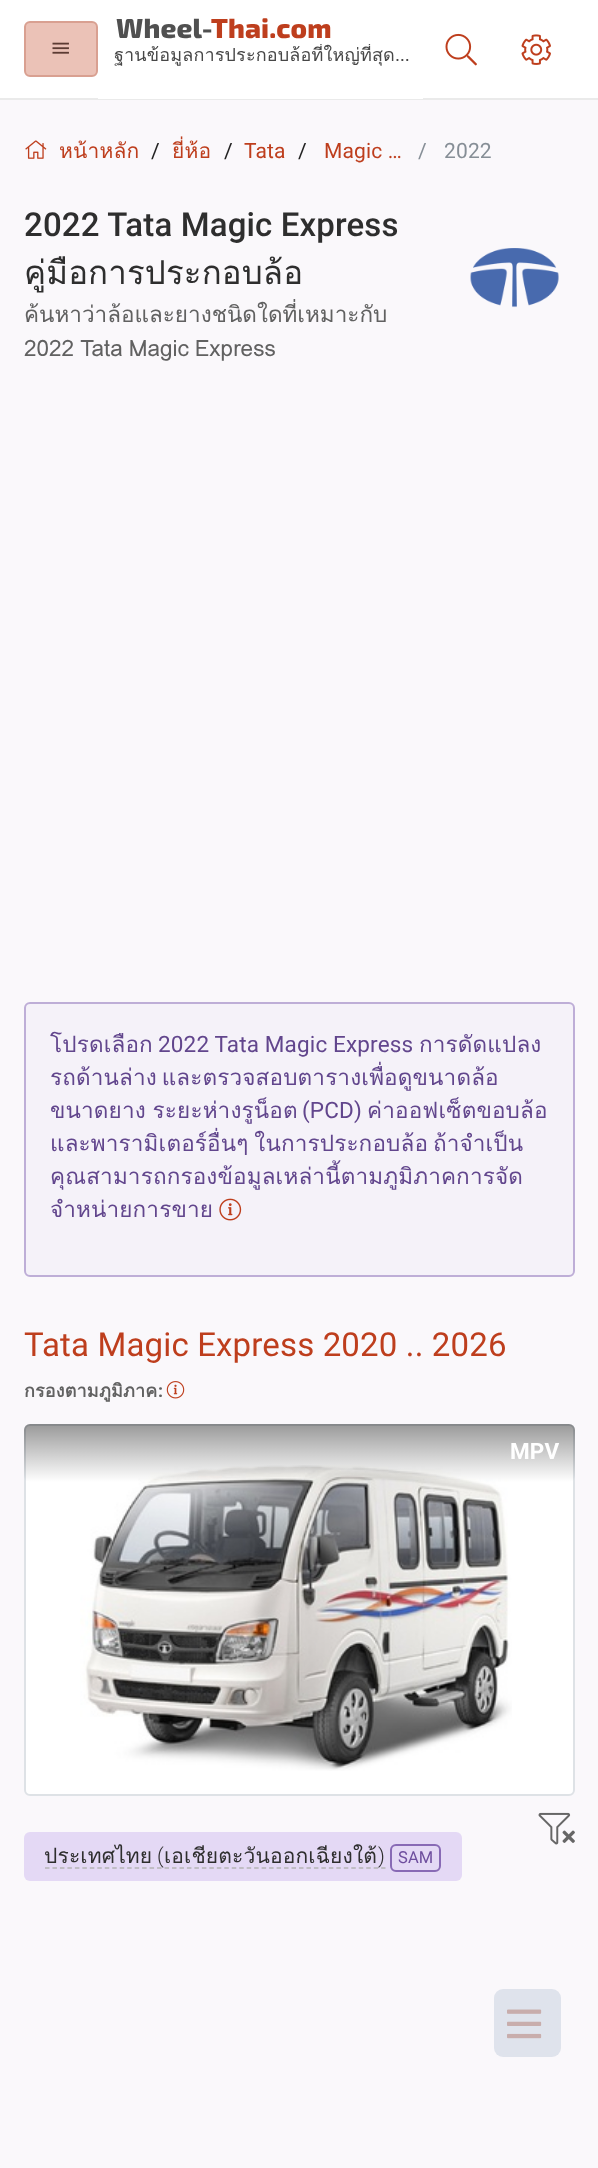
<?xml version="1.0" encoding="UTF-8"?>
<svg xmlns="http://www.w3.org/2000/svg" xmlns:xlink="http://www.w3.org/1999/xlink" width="598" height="2168">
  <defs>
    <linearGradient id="g1" gradientUnits="userSpaceOnUse" x1="299" y1="1424" x2="299" y2="1482"><stop offset="0" stop-color="#000000" stop-opacity="0.4" /><stop offset="1" stop-color="#000000" stop-opacity="0" /></linearGradient>
    <clipPath id="clip1"><rect x="114" y="44" width="303" height="25" /></clipPath>
    <clipPath id="clip2"><rect x="24" y="299" width="398" height="66" /></clipPath>
  </defs>
  <rect width="100%" height="100%" fill="#ffffff" />
  <rect y="98" width="598" height="2" fill="#eaeaea" />
  <rect x="25" y="22" width="72" height="54" rx="5" fill="#ebc2b7" stroke="#d9a091" stroke-width="2" />
  <image x="52" y="42" width="17" height="12" xlink:href="image1.png" />
  <rect x="98" y="98" width="325" height="1" fill="#ffffff" />
  <image x="445" y="33" width="32" height="33" xlink:href="image2.png" />
  <image x="521" y="34" width="30" height="31" xlink:href="image3.png" />
  <rect y="100" width="598" height="2068" fill="#faf8fb" />
  <image x="25" y="140" width="22" height="19" xlink:href="image4.png" />
  <image x="470" y="248" width="89" height="60" xlink:href="image5.png" />
  <rect x="25" y="1003" width="549" height="273" rx="5" fill="#f5f2f9" stroke="#beaed7" stroke-width="2" />
  <image x="219" y="1198" width="23" height="23" xlink:href="image6.png" />
  <image x="166" y="1381" width="19" height="18" xlink:href="image7.png" />
  <rect x="25" y="1425" width="549" height="370" rx="5" fill="#ffffff" stroke="#dee2e6" stroke-width="2" />
  <image x="80" y="1465" width="432" height="306" xlink:href="image8.png" />
  <rect x="24" y="1424" width="551" height="58" rx="6" fill="url(#g1)" />
  <image x="538" y="1812" width="33" height="33" xlink:href="image9.png" />
  <image x="562" y="1830" width="13" height="13" xlink:href="image10.png" />
  <rect x="24" y="1832" width="438" height="49" rx="6" fill="#e4d9f5" />
  <path d="M 45 1868 h 340.5" fill="none" stroke="#b4b4b4" stroke-width="1.5" stroke-dasharray="4.5 2.97" />
  <rect x="391" y="1845" width="49" height="26" rx="5" fill="none" stroke="#886ab5" stroke-width="2" />
  <rect x="494" y="1989" width="67" height="68" rx="9" fill="#dfe3ec" />
  <image x="507" y="2009" width="35" height="30" xlink:href="image11.png" />
  <text x="116" y="38" style="font-family: 'Exo 2'; font-size: 27.5px; font-weight: 800; letter-spacing: 0.15px; fill: #505050">Wheel-</text>
  <text x="211" y="38" style="font-family: 'Exo 2'; font-size: 27.5px; font-weight: 800; letter-spacing: 0.15px; fill: #be3e1d">Thai.com</text>
  <g clip-path="url(#clip1)">
    <text x="114" y="61" style="font-family: Loma; font-size: 18px; letter-spacing: 0.15px; fill: #474747">ฐานข้อมูลการประกอบล้อที่ใหญ่ที่สุด…</text>
  </g>
  <text x="59" y="158" style="font-family: Loma; font-size: 21px; letter-spacing: 0.15px; fill: #be3e1d">หน้าหลัก</text>
  <text x="151" y="158" style="font-family: Roboto; font-size: 21px; letter-spacing: 0.15px; fill: #222222">/</text>
  <text x="172" y="158" style="font-family: Loma; font-size: 21px; letter-spacing: 0.15px; fill: #be3e1d">ยี่ห้อ</text>
  <text x="224" y="158" style="font-family: Roboto; font-size: 21px; letter-spacing: 0.15px; fill: #222222">/</text>
  <text x="244" y="158" style="font-family: Roboto; font-size: 21px; letter-spacing: 0.15px; fill: #be3e1d">Tata</text>
  <text x="298" y="158" style="font-family: Roboto; font-size: 21px; letter-spacing: 0.15px; fill: #222222">/</text>
  <text x="324" y="158" style="font-family: Roboto; font-size: 21px; letter-spacing: 0.15px; fill: #be3e1d">Magic …</text>
  <text x="418" y="158" style="font-family: Roboto; font-size: 21px; letter-spacing: 0.15px; fill: #868e96">/</text>
  <text x="444" y="158" style="font-family: Roboto; font-size: 21px; letter-spacing: 0.15px; fill: #868e96">2022</text>
  <text x="24" y="236" style="font-family: Roboto; font-size: 33px; font-weight: 500; letter-spacing: 0.15px; fill: #2e2e2e">2022 Tata Magic Express</text>
  <text x="24" y="284" style="font-family: Loma; font-size: 33px; letter-spacing: 0.15px; fill: #2e2e2e">คู่มือการประกอบล้อ</text>
  <g clip-path="url(#clip2)">
    <text x="24" y="322" style="font-family: Loma; font-size: 22.5px; fill: #616161">ค้นหาว่าล้อและยางชนิดใดที่เหมาะกับ</text>
  </g>
  <text x="24" y="356" word-spacing="-1.5" style="font-family: Loma; font-size: 22.5px; fill: #616161">2022 Tata Magic Express</text>
  <text x="50" y="1052" style="font-family: Loma; font-size: 22.5px; letter-spacing: 0.15px; fill: #62468d">โปรดเลือก</text>
  <text x="158" y="1052" style="font-family: Roboto; font-size: 22.5px; letter-spacing: 0.15px; fill: #62468d">2022 Tata Magic Express</text>
  <text x="419" y="1052" style="font-family: Loma; font-size: 22.5px; letter-spacing: 0.15px; fill: #62468d">การดัดแปลง</text>
  <text x="50" y="1085" word-spacing="-3" style="font-family: Loma; font-size: 22.5px; letter-spacing: 0.15px; fill: #62468d">รถด้านล่าง และตรวจสอบตารางเพื่อดูขนาดล้อ</text>
  <text x="50" y="1118" word-spacing="-1" style="font-family: Loma; font-size: 22.5px; letter-spacing: 0.15px; fill: #62468d">ขนาดยาง ระยะห่างรูน็อต</text>
  <text x="302" y="1118" style="font-family: Roboto; font-size: 22.5px; letter-spacing: 0.15px; fill: #62468d">(PCD)</text>
  <text x="367" y="1118" style="font-family: Loma; font-size: 22.5px; letter-spacing: 0.15px; fill: #62468d">ค่าออฟเซ็ตขอบล้อ</text>
  <text x="50" y="1151" word-spacing="-2" style="font-family: Loma; font-size: 22.5px; letter-spacing: 0.15px; fill: #62468d">และพารามิเตอร์อื่นๆ ในการประกอบล้อ</text>
  <text x="433" y="1151" style="font-family: Loma; font-size: 22.5px; letter-spacing: 0.15px; fill: #62468d">ถ้าจำเป็น</text>
  <text x="50" y="1184" style="font-family: Loma; font-size: 22.5px; letter-spacing: 0.15px; fill: #62468d">คุณสามารถกรองข้อมูลเหล่านี้ตามภูมิภาคการจัด</text>
  <text x="50" y="1217" style="font-family: Loma; font-size: 22.5px; letter-spacing: 0.15px; fill: #62468d">จำหน่ายการขาย</text>
  <text x="24" y="1356" style="font-family: Roboto; font-size: 33px; letter-spacing: 0.15px; fill: #be3e1d">Tata Magic Express 2020 .. 2026</text>
  <text x="24" y="1397" style="font-family: Loma; font-size: 18px; font-weight: bold; letter-spacing: 0.15px; fill: #616161">กรองตามภูมิภาค</text>
  <text x="158" y="1397" style="font-family: Roboto; font-size: 18px; font-weight: bold; letter-spacing: 0.15px; fill: #616161">:</text>
  <text x="510" y="1459" style="font-family: Roboto; font-size: 22.5px; font-weight: bold; letter-spacing: 0.15px; fill: #ffffff">MPV</text>
  <text x="44" y="1863" style="font-family: Loma; font-size: 21px; letter-spacing: 0.15px; fill: #2e2e2e">ประเทศไทย</text>
  <text x="157" y="1863" style="font-family: Roboto; font-size: 21px; font-weight: 300; letter-spacing: 0.15px; fill: #2e2e2e">(</text>
  <text x="164" y="1863" style="font-family: Loma; font-size: 21px; letter-spacing: 0.15px; fill: #2e2e2e">เอเชียตะวันออกเฉียงใต้</text>
  <text x="378" y="1863" style="font-family: Roboto; font-size: 21px; font-weight: 300; letter-spacing: 0.15px; fill: #2e2e2e">)</text>
  <text x="398" y="1863" style="font-family: Roboto; font-size: 16.5px; letter-spacing: 0.15px; fill: #6e4e9e">SAM</text>
</svg>
